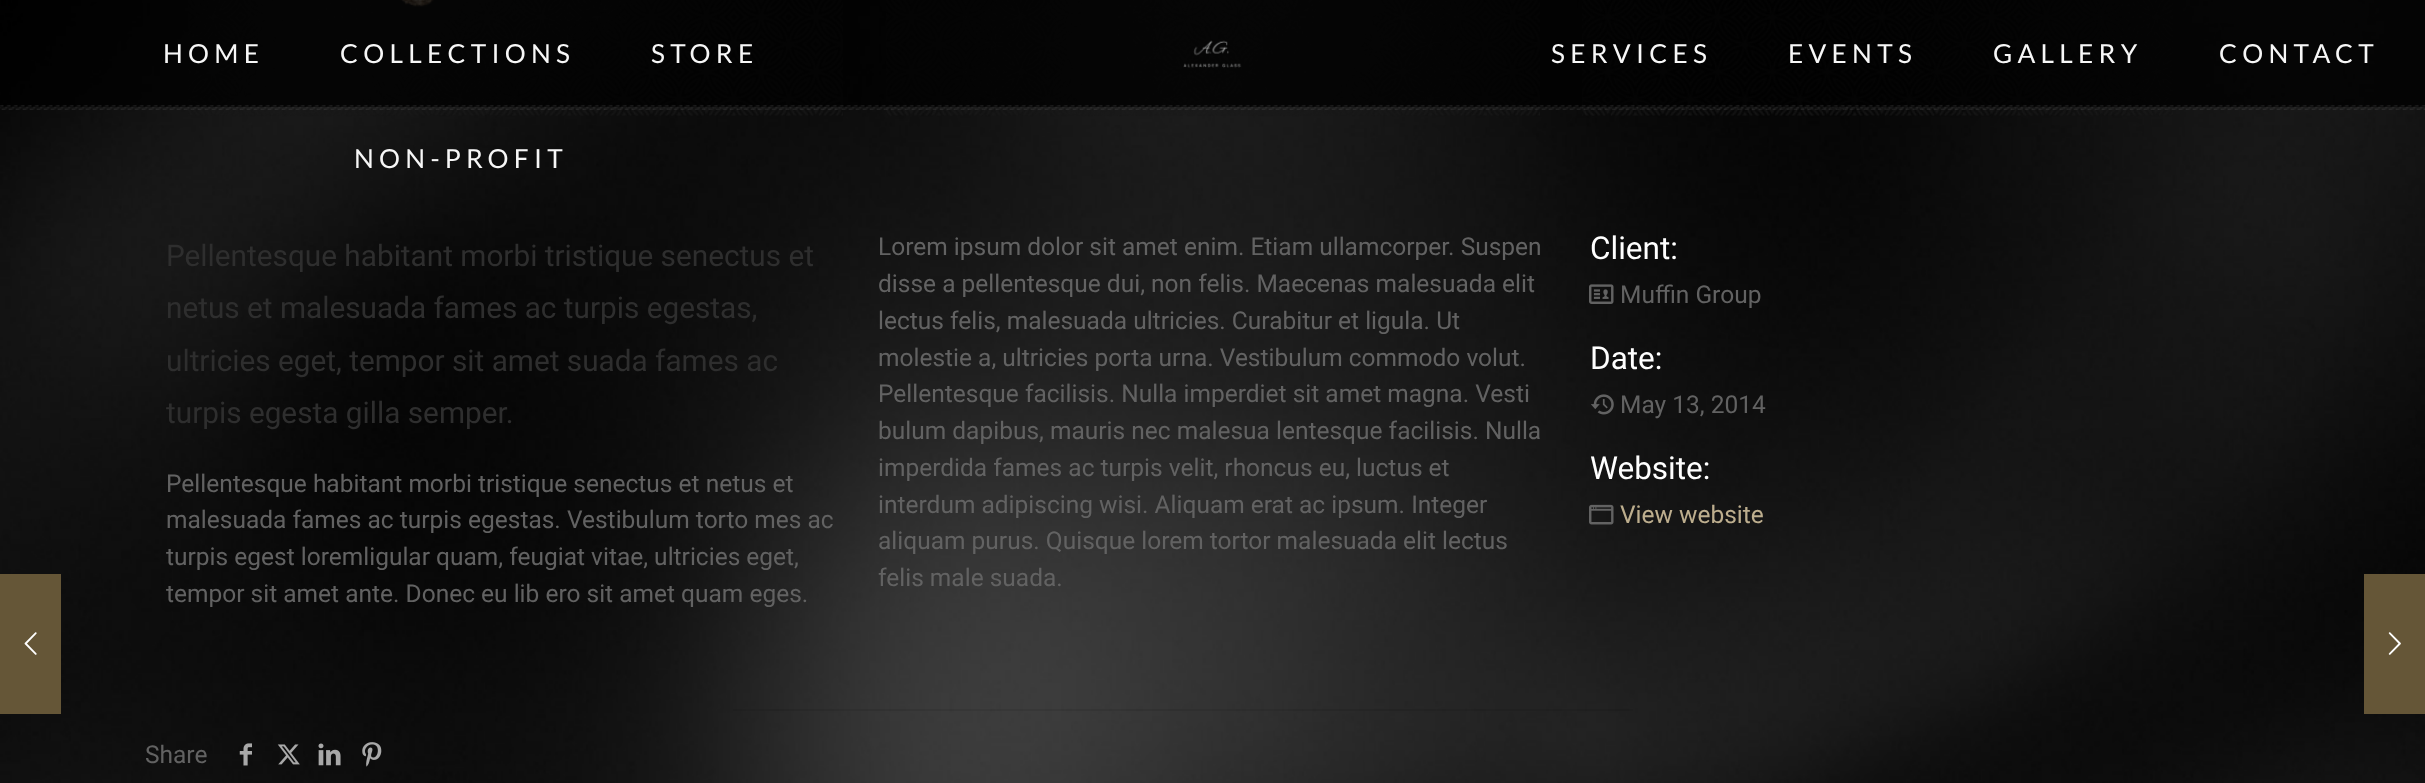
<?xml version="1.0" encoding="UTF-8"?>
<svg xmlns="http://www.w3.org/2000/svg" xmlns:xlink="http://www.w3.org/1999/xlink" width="2425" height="783">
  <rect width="100%" height="100%" fill="#ffffff" />
  <image x="0" y="0" width="2425" height="783" xlink:href="image1.png" />
  <rect y="574" width="61" height="140" fill="#655637" />
  <image x="24" y="632" width="13" height="23" xlink:href="image2.png" />
  <image x="188" y="0" width="655" height="116" xlink:href="image5.png" />
  <image x="886" y="0" width="654" height="116" xlink:href="image6.png" />
  <image x="1582" y="0" width="591" height="116" xlink:href="image7.png" />
  <rect width="2425" height="107" fill="#000000" fill-opacity="0.78" />
  <image x="1183" y="40" width="59" height="28" xlink:href="image3.png" />
  <image x="0" y="105" width="2425" height="5" xlink:href="image4.png" />
  <image x="1589" y="284" width="25" height="20" xlink:href="image8.png" />
  <image x="1591" y="394" width="23" height="21" xlink:href="image9.png" />
  <image x="1589" y="504" width="25" height="21" xlink:href="image10.png" />
  <rect x="733" y="709" width="900" height="2" fill="#000000" fill-opacity="0.08" />
  <image x="239" y="743" width="13" height="23" xlink:href="image11.png" />
  <image x="277" y="744" width="23" height="21" xlink:href="image12.png" />
  <image x="318" y="743" width="23" height="23" xlink:href="image13.png" />
  <image x="362" y="742" width="20" height="25" xlink:href="image14.png" />
  <rect x="2364" y="574" width="61" height="140" fill="#655637" />
  <image x="2388" y="632" width="13" height="23" xlink:href="image15.png" />
  <text x="163" y="63" style="font-family: Lato; font-size: 26.25px; letter-spacing: 5.25px; fill: #f7f7f7">HOME</text>
  <text x="340" y="63" style="font-family: Lato; font-size: 26.25px; letter-spacing: 5.25px; fill: #f7f7f7">COLLECTIONS</text>
  <text x="651" y="63" style="font-family: Lato; font-size: 26.25px; letter-spacing: 5.25px; fill: #f7f7f7">STORE</text>
  <text x="354" y="168" style="font-family: Lato; font-size: 26.25px; letter-spacing: 5.25px; fill: #f7f7f7">NON-PROFIT</text>
  <text x="1551" y="63" style="font-family: Lato; font-size: 26.25px; letter-spacing: 5.25px; fill: #f7f7f7">SERVICES</text>
  <text x="1788" y="63" style="font-family: Lato; font-size: 26.25px; letter-spacing: 5.25px; fill: #f7f7f7">EVENTS</text>
  <text x="1993" y="63" style="font-family: Lato; font-size: 26.25px; letter-spacing: 5.25px; fill: #f7f7f7">GALLERY</text>
  <text x="2219" y="63" style="font-family: Lato; font-size: 26.25px; letter-spacing: 5.25px; fill: #f7f7f7">CONTACT</text>
  <text x="166" y="266" style="font-family: Roboto; font-size: 29.75px; fill: #2e2e2e">Pellentesque habitant morbi tristique senectus et</text>
  <text x="166" y="318" style="font-family: Roboto; font-size: 29.75px; fill: #2e2e2e">netus et malesuada fames ac turpis egestas,</text>
  <text x="166" y="371" style="font-family: Roboto; font-size: 29.75px; fill: #2e2e2e">ultricies eget, tempor sit amet suada fames ac</text>
  <text x="166" y="423" style="font-family: Roboto; font-size: 29.75px; fill: #2e2e2e">turpis egesta gilla semper.</text>
  <text x="166" y="492" style="font-family: Roboto; font-size: 24.5px; fill: #626262">Pellentesque habitant morbi tristique senectus et netus et</text>
  <text x="166" y="528" style="font-family: Roboto; font-size: 24.5px; fill: #626262">malesuada fames ac turpis egestas. Vestibulum torto mes ac</text>
  <text x="166" y="565" style="font-family: Roboto; font-size: 24.5px; fill: #626262">turpis egest loremligular quam, feugiat vitae, ultricies eget,</text>
  <text x="166" y="602" style="font-family: Roboto; font-size: 24.5px; fill: #626262">tempor sit amet ante. Donec eu lib ero sit amet quam eges.</text>
  <text x="878" y="255" style="font-family: Roboto; font-size: 24.5px; fill: #626262">Lorem ipsum dolor sit amet enim. Etiam ullamcorper. Suspen</text>
  <text x="878" y="292" style="font-family: Roboto; font-size: 24.5px; fill: #626262">disse a pellentesque dui, non felis. Maecenas malesuada elit</text>
  <text x="878" y="329" style="font-family: Roboto; font-size: 24.5px; fill: #626262">lectus felis, malesuada ultricies. Curabitur et ligula. Ut</text>
  <text x="878" y="366" style="font-family: Roboto; font-size: 24.5px; fill: #626262">molestie a, ultricies porta urna. Vestibulum commodo volut.</text>
  <text x="878" y="402" style="font-family: Roboto; font-size: 24.5px; fill: #626262">Pellentesque facilisis. Nulla imperdiet sit amet magna. Vesti</text>
  <text x="878" y="439" style="font-family: Roboto; font-size: 24.5px; fill: #626262">bulum dapibus, mauris nec malesua lentesque facilisis. Nulla</text>
  <text x="878" y="476" style="font-family: Roboto; font-size: 24.5px; fill: #626262">imperdida fames ac turpis velit, rhoncus eu, luctus et</text>
  <text x="878" y="513" style="font-family: Roboto; font-size: 24.5px; fill: #626262">interdum adipiscing wisi. Aliquam erat ac ipsum. Integer</text>
  <text x="878" y="549" style="font-family: Roboto; font-size: 24.5px; fill: #626262">aliquam purus. Quisque lorem tortor malesuada elit lectus</text>
  <text x="878" y="586" style="font-family: Roboto; font-size: 24.5px; fill: #626262">felis male suada.</text>
  <text x="1590" y="259" style="font-family: Roboto; font-size: 31.5px; fill: #ffffff">Client:</text>
  <text x="1620" y="303" style="font-family: Roboto; font-size: 24.5px; fill: #626262">Muffin Group</text>
  <text x="1590" y="369" style="font-family: Roboto; font-size: 31.5px; fill: #ffffff">Date:</text>
  <text x="1620" y="413" style="font-family: Roboto; font-size: 24.5px; fill: #626262">May 13, 2014</text>
  <text x="1590" y="479" style="font-family: Roboto; font-size: 31.5px; fill: #ffffff">Website:</text>
  <text x="1620" y="523" style="font-family: Roboto; font-size: 24.5px; fill: #bdae8e">View website</text>
  <text x="145" y="763" style="font-family: Roboto; font-size: 24.5px; fill: #626262">Share</text>
</svg>
